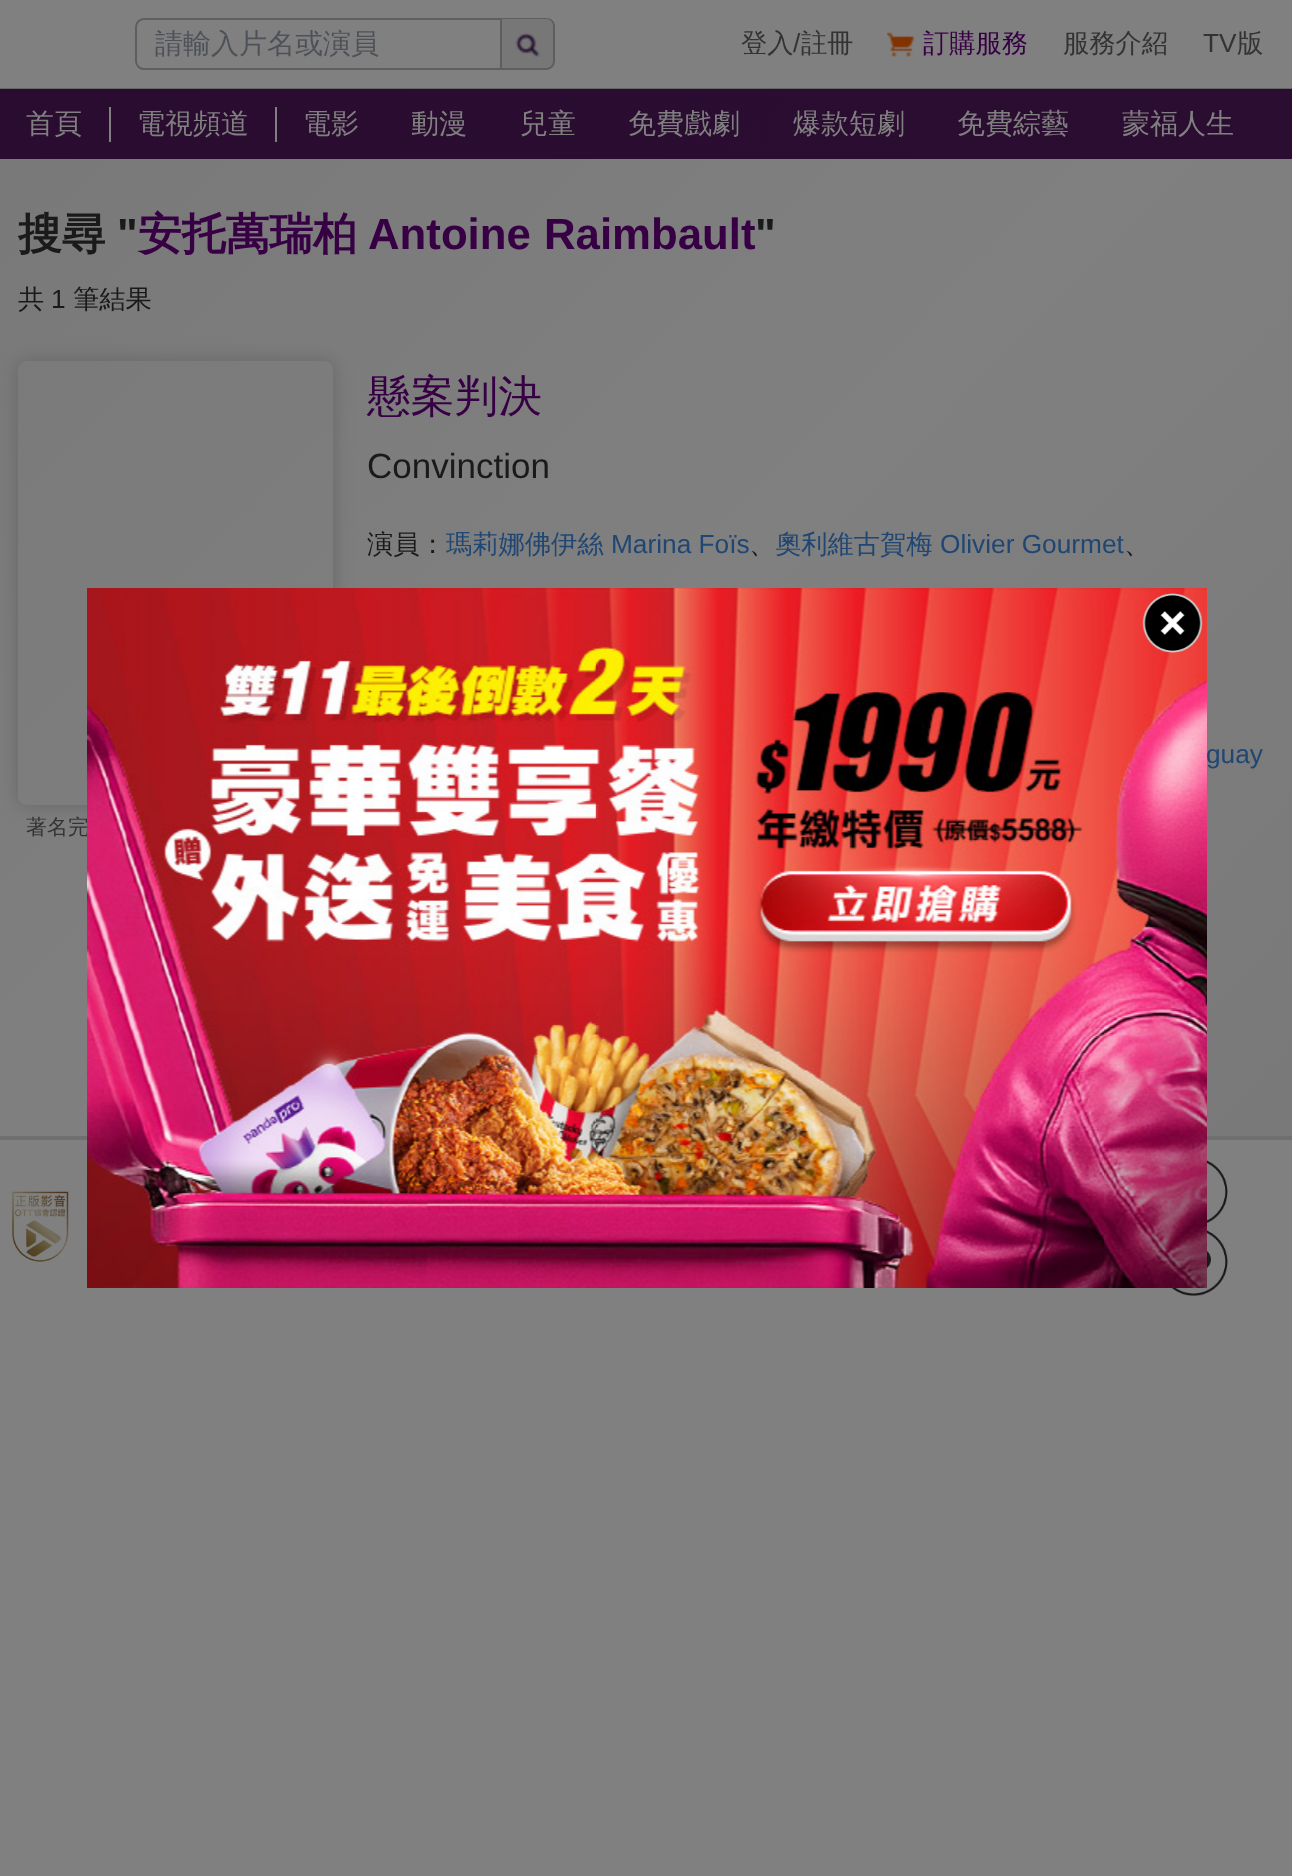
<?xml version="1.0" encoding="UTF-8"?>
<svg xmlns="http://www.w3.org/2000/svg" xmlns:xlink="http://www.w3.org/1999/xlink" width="1292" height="1876">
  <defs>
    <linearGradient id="g1" gradientUnits="userSpaceOnUse" x1="-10" y1="11" x2="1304" y2="1304"><stop offset="0" stop-color="#787878" /><stop offset="0.5" stop-color="#808080" /><stop offset="1" stop-color="#787878" /></linearGradient>
    <linearGradient id="g2" gradientUnits="userSpaceOnUse" x1="-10" y1="11" x2="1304" y2="1304"><stop offset="0" stop-color="#290c30" /><stop offset="0.5" stop-color="#2a0d31" /><stop offset="1" stop-color="#290c30" /></linearGradient>
    <clipPath id="clip1"><path d="M 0 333 h 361 v 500 h -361 z m 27 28 h 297 c 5 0 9 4 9 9 v 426 c 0 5 -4 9 -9 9 h -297 c -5 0 -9 -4 -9 -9 v -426 c 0 -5 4 -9 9 -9 z" clip-rule="evenodd" /></clipPath>
  </defs>
  <rect width="100%" height="100%" fill="#808080" />
  <rect y="159" width="1292" height="977" fill="url(#g1)" />
  <rect y="90" width="1292" height="69" fill="url(#g2)" />
  <path d="M 144 19 h 357 v 50 h -357 c -4.5 0 -8 -3.5 -8 -8 v -34 c 0 -4.5 3.5 -8 8 -8 z" fill="none" stroke="#5e5e5e" stroke-width="2" />
  <path d="M 502 19 h 44 c 4 0 7 3 7 7 v 35 c 0 4 -3 7 -7 7 h -44 z" fill="#777777" />
  <path d="M 502 18 h 44 c 5 0 9 3 9 8 v 35 c 0 5 -4 9 -9 9 h -44 z m 0 1 h 44 c 4 0 7 3 7 7 v 35 c 0 4 -3 7 -7 7 h -44 z" fill="#5e5e5e" fill-rule="evenodd" />
  <image x="515" y="33" width="25" height="24" xlink:href="image1.png" />
  <image x="887" y="32" width="28" height="25" xlink:href="image2.png" />
  <rect y="88" width="1292" height="1" fill="#666666" />
  <rect y="89" width="1292" height="1" fill="#280a2e" />
  <rect x="109" y="107" width="2" height="35" fill="#808080" />
  <rect x="275" y="107" width="2" height="35" fill="#808080" />
  <g clip-path="url(#clip1)">
    <rect x="18" y="361" width="315" height="444" rx="9" fill="#666666" filter="blur(9px)" />
  </g>
  <rect y="1136" width="1292" height="4" fill="#6f6f6f" />
  <image x="12" y="1191" width="57" height="71" xlink:href="image5.png" />
  <image x="1207" y="1160" width="21" height="63" xlink:href="image6.png" />
  <image x="1172" y="1230" width="56" height="66" xlink:href="image7.png" />
  <text x="155" y="53" style="font-family: WenQuanYi Zen Hei; font-size: 28px; font-weight: 500; fill: #4e5258">請輸入片名或演員</text>
  <text x="741" y="52" style="font-family: WenQuanYi Zen Hei; font-size: 26.25px; font-weight: 500; fill: #333333">登入</text>
  <text x="793" y="52" style="font-family: Liberation Sans; font-size: 26.25px; fill: #333333">/</text>
  <text x="801" y="52" style="font-family: WenQuanYi Zen Hei; font-size: 26.25px; font-weight: 500; fill: #333333">註冊</text>
  <text x="923" y="52" style="font-family: WenQuanYi Zen Hei; font-size: 26.25px; font-weight: 500; fill: #370044">訂購服務</text>
  <text x="1063" y="52" style="font-family: WenQuanYi Zen Hei; font-size: 26.25px; font-weight: 500; fill: #333333">服務介紹</text>
  <text x="1203" y="52" style="font-family: Liberation Sans; font-size: 26.25px; fill: #333333">TV</text>
  <text x="1237" y="52" style="font-family: WenQuanYi Zen Hei; font-size: 26.25px; font-weight: 500; fill: #333333">版</text>
  <text x="26" y="133" style="font-family: WenQuanYi Zen Hei; font-size: 28px; font-weight: 500; fill: #808080">首頁</text>
  <text x="137" y="133" style="font-family: WenQuanYi Zen Hei; font-size: 28px; font-weight: 500; fill: #808080">電視頻道</text>
  <text x="303" y="133" style="font-family: WenQuanYi Zen Hei; font-size: 28px; font-weight: 500; fill: #808080">電影</text>
  <text x="411" y="133" style="font-family: WenQuanYi Zen Hei; font-size: 28px; font-weight: 500; fill: #808080">動漫</text>
  <text x="520" y="133" style="font-family: WenQuanYi Zen Hei; font-size: 28px; font-weight: 500; fill: #808080">兒童</text>
  <text x="628" y="133" style="font-family: WenQuanYi Zen Hei; font-size: 28px; font-weight: 500; fill: #808080">免費戲劇</text>
  <text x="793" y="133" style="font-family: WenQuanYi Zen Hei; font-size: 28px; font-weight: 500; fill: #808080">爆款短劇</text>
  <text x="957" y="133" style="font-family: WenQuanYi Zen Hei; font-size: 28px; font-weight: 500; fill: #808080">免費綜藝</text>
  <text x="1122" y="133" style="font-family: WenQuanYi Zen Hei; font-size: 28px; font-weight: 500; fill: #808080">蒙福人生</text>
  <text x="18" y="249" style="font-family: WenQuanYi Zen Hei; font-size: 43.75px; font-weight: bold; fill: #1a1a1a">搜尋</text>
  <text x="117" y="249" style="font-family: Liberation Sans; font-size: 43.75px; font-weight: bold; fill: #1a1a1a">"</text>
  <text x="138" y="249" style="font-family: WenQuanYi Zen Hei; font-size: 43.75px; font-weight: bold; fill: #370044">安托萬瑞柏</text>
  <text x="368" y="249" word-spacing="1" style="font-family: Liberation Sans; font-size: 43.75px; font-weight: bold; fill: #370044">Antoine Raimbault</text>
  <text x="755" y="249" style="font-family: Liberation Sans; font-size: 43.75px; font-weight: bold; fill: #1a1a1a">"</text>
  <text x="18" y="308" style="font-family: WenQuanYi Zen Hei; font-size: 26.25px; font-weight: 500; fill: #1a1a1a">共</text>
  <text x="51" y="308" style="font-family: Liberation Sans; font-size: 26.25px; fill: #1a1a1a">1</text>
  <text x="73" y="308" style="font-family: WenQuanYi Zen Hei; font-size: 26.25px; font-weight: 500; fill: #1a1a1a">筆結果</text>
  <text x="367" y="411" style="font-family: WenQuanYi Zen Hei; font-size: 43.75px; font-weight: 500; fill: #370044">懸案判決</text>
  <text x="367" y="478" style="font-family: Liberation Sans; font-size: 35px; fill: #1a1a1a">Convinction</text>
  <text x="367" y="553" style="font-family: WenQuanYi Zen Hei; font-size: 26.25px; font-weight: 500; fill: #1a1a1a">演員：</text>
  <text x="446" y="553" style="font-family: WenQuanYi Zen Hei; font-size: 26.25px; font-weight: 500; fill: #204773">瑪莉娜佛伊絲</text>
  <text x="611" y="553" style="font-family: Liberation Sans; font-size: 26.25px; fill: #204773">Marina Foïs</text>
  <text x="749" y="553" style="font-family: WenQuanYi Zen Hei; font-size: 26.25px; font-weight: 500; fill: #1a1a1a">、</text>
  <text x="775" y="553" style="font-family: WenQuanYi Zen Hei; font-size: 26.25px; font-weight: 500; fill: #204773">奧利維古賀梅</text>
  <text x="940" y="553" style="font-family: Liberation Sans; font-size: 26.25px; fill: #204773">Olivier Gourmet</text>
  <text x="1124" y="553" style="font-family: WenQuanYi Zen Hei; font-size: 26.25px; font-weight: 500; fill: #1a1a1a">、</text>
  <text x="1206" y="763" style="font-family: Liberation Sans; font-size: 26.25px; fill: #204773">guay</text>
  <text x="26" y="834" style="font-family: WenQuanYi Zen Hei; font-size: 21px; font-weight: 500; fill: #333333">著名完</text>
  <image x="87" y="588" width="1120" height="700" xlink:href="image3.png" />
  <image x="1142" y="593" width="61" height="60" xlink:href="image4.png" />
</svg>
